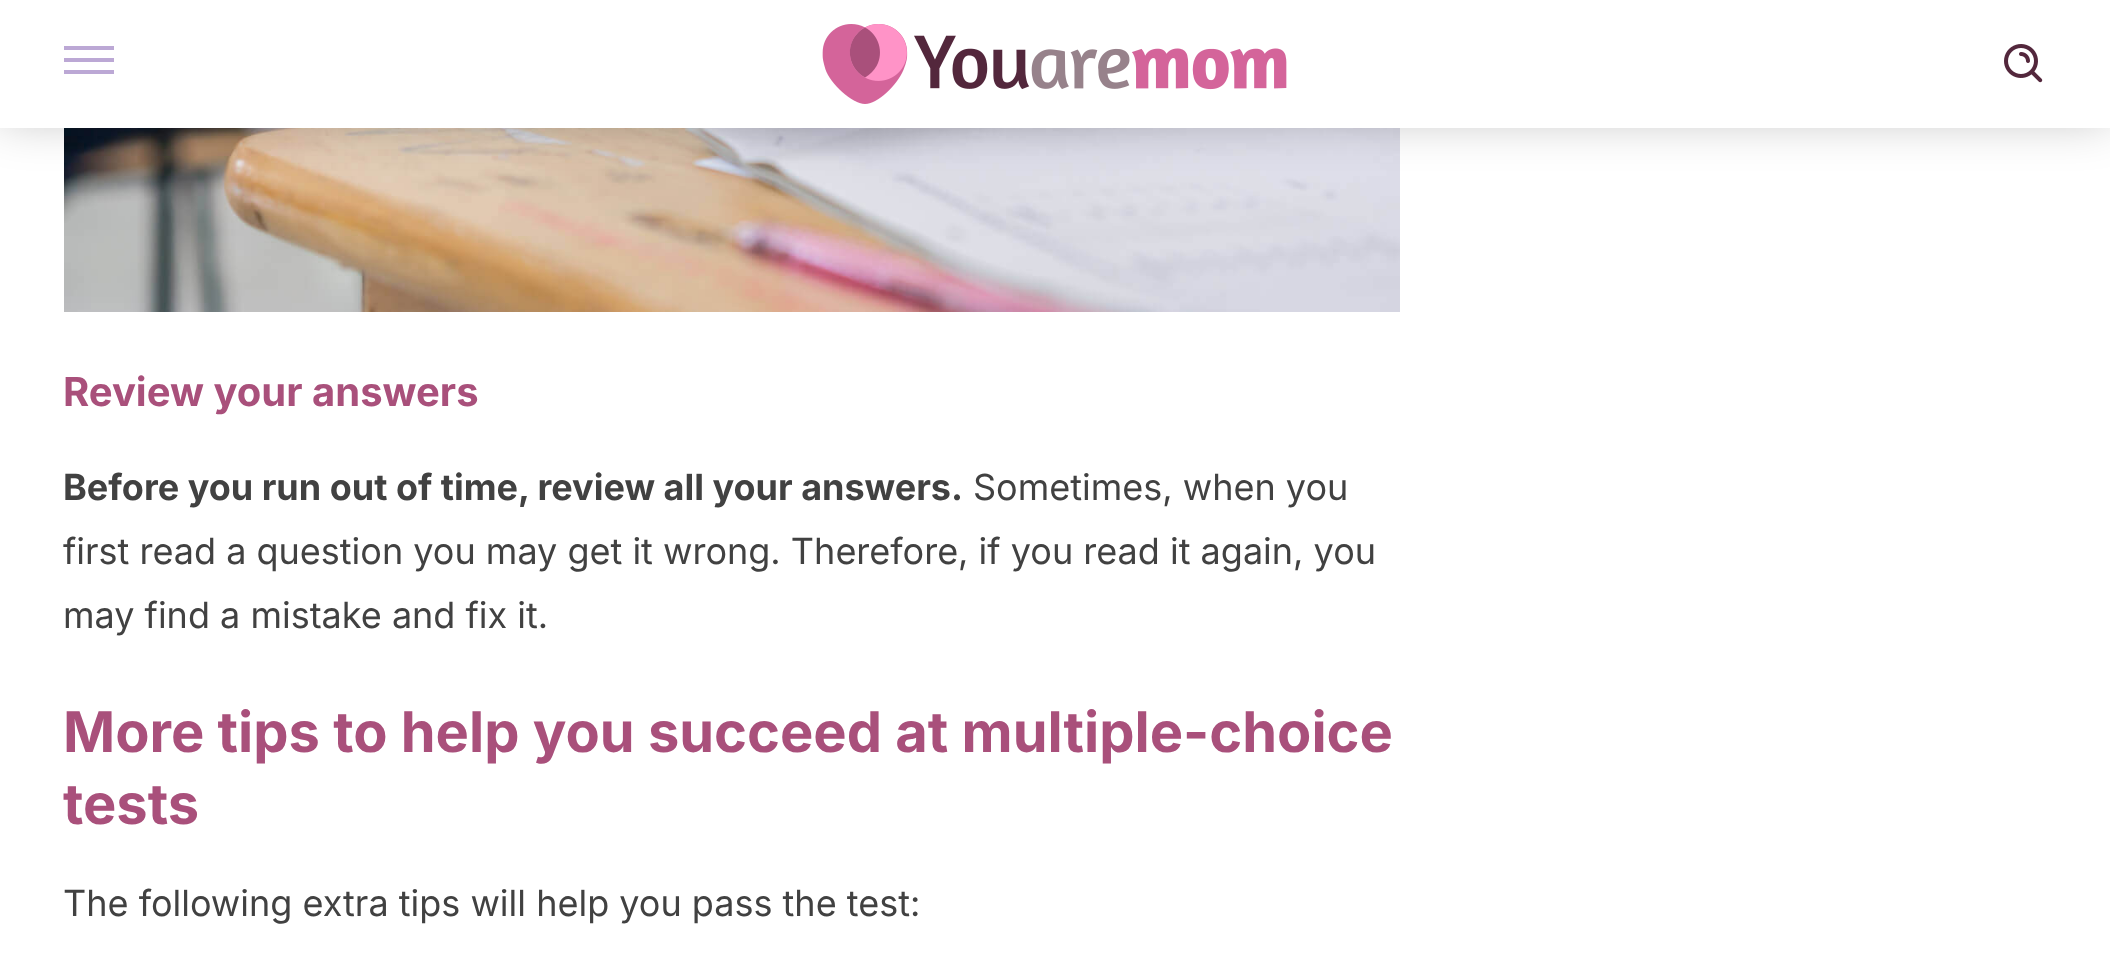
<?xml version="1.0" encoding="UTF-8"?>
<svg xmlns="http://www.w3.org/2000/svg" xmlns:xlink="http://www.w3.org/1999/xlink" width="2110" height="960">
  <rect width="100%" height="100%" fill="#ffffff" />
  <image x="64" y="128" width="1336" height="184" xlink:href="image3.png" />
  <rect y="-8" width="2110" height="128" fill="#000000" fill-opacity="0.25" filter="blur(24px)" />
  <rect width="2110" height="128" fill="#ffffff" />
  <rect x="64" y="46" width="50" height="4" fill="#bca8d5" />
  <rect x="64" y="58" width="50" height="4" fill="#bca8d5" />
  <rect x="64" y="70" width="50" height="4" fill="#bca8d5" />
  <image x="822" y="24" width="465" height="80" xlink:href="image1.png" />
  <image x="2004" y="44" width="39" height="39" xlink:href="image2.png" />
  <text x="63" y="406" style="font-family: Inter; font-size: 40px; font-weight: bold; fill: #a9507b">Review your answers</text>
  <text x="63" y="500" style="font-family: Inter; font-size: 36px; font-weight: bold; fill: #414141">Before you run out of time, review all your answers.</text>
  <text x="973" y="500" style="font-family: Inter; font-size: 36px; fill: #414141">Sometimes, when you</text>
  <text x="63" y="564" style="font-family: Inter; font-size: 36px; fill: #414141">first read a question you may get it wrong. Therefore, if you read it again, you</text>
  <text x="63" y="628" style="font-family: Inter; font-size: 36px; fill: #414141">may find a mistake and fix it.</text>
  <text x="63" y="752" style="font-family: Inter; font-size: 56px; font-weight: bold; fill: #a9507b">More tips to help you succeed at multiple-choice</text>
  <text x="63" y="824" style="font-family: Inter; font-size: 56px; font-weight: bold; fill: #a9507b">tests</text>
  <text x="63" y="916" style="font-family: Inter; font-size: 36px; fill: #414141">The following extra tips will help you pass the test:</text>
</svg>
